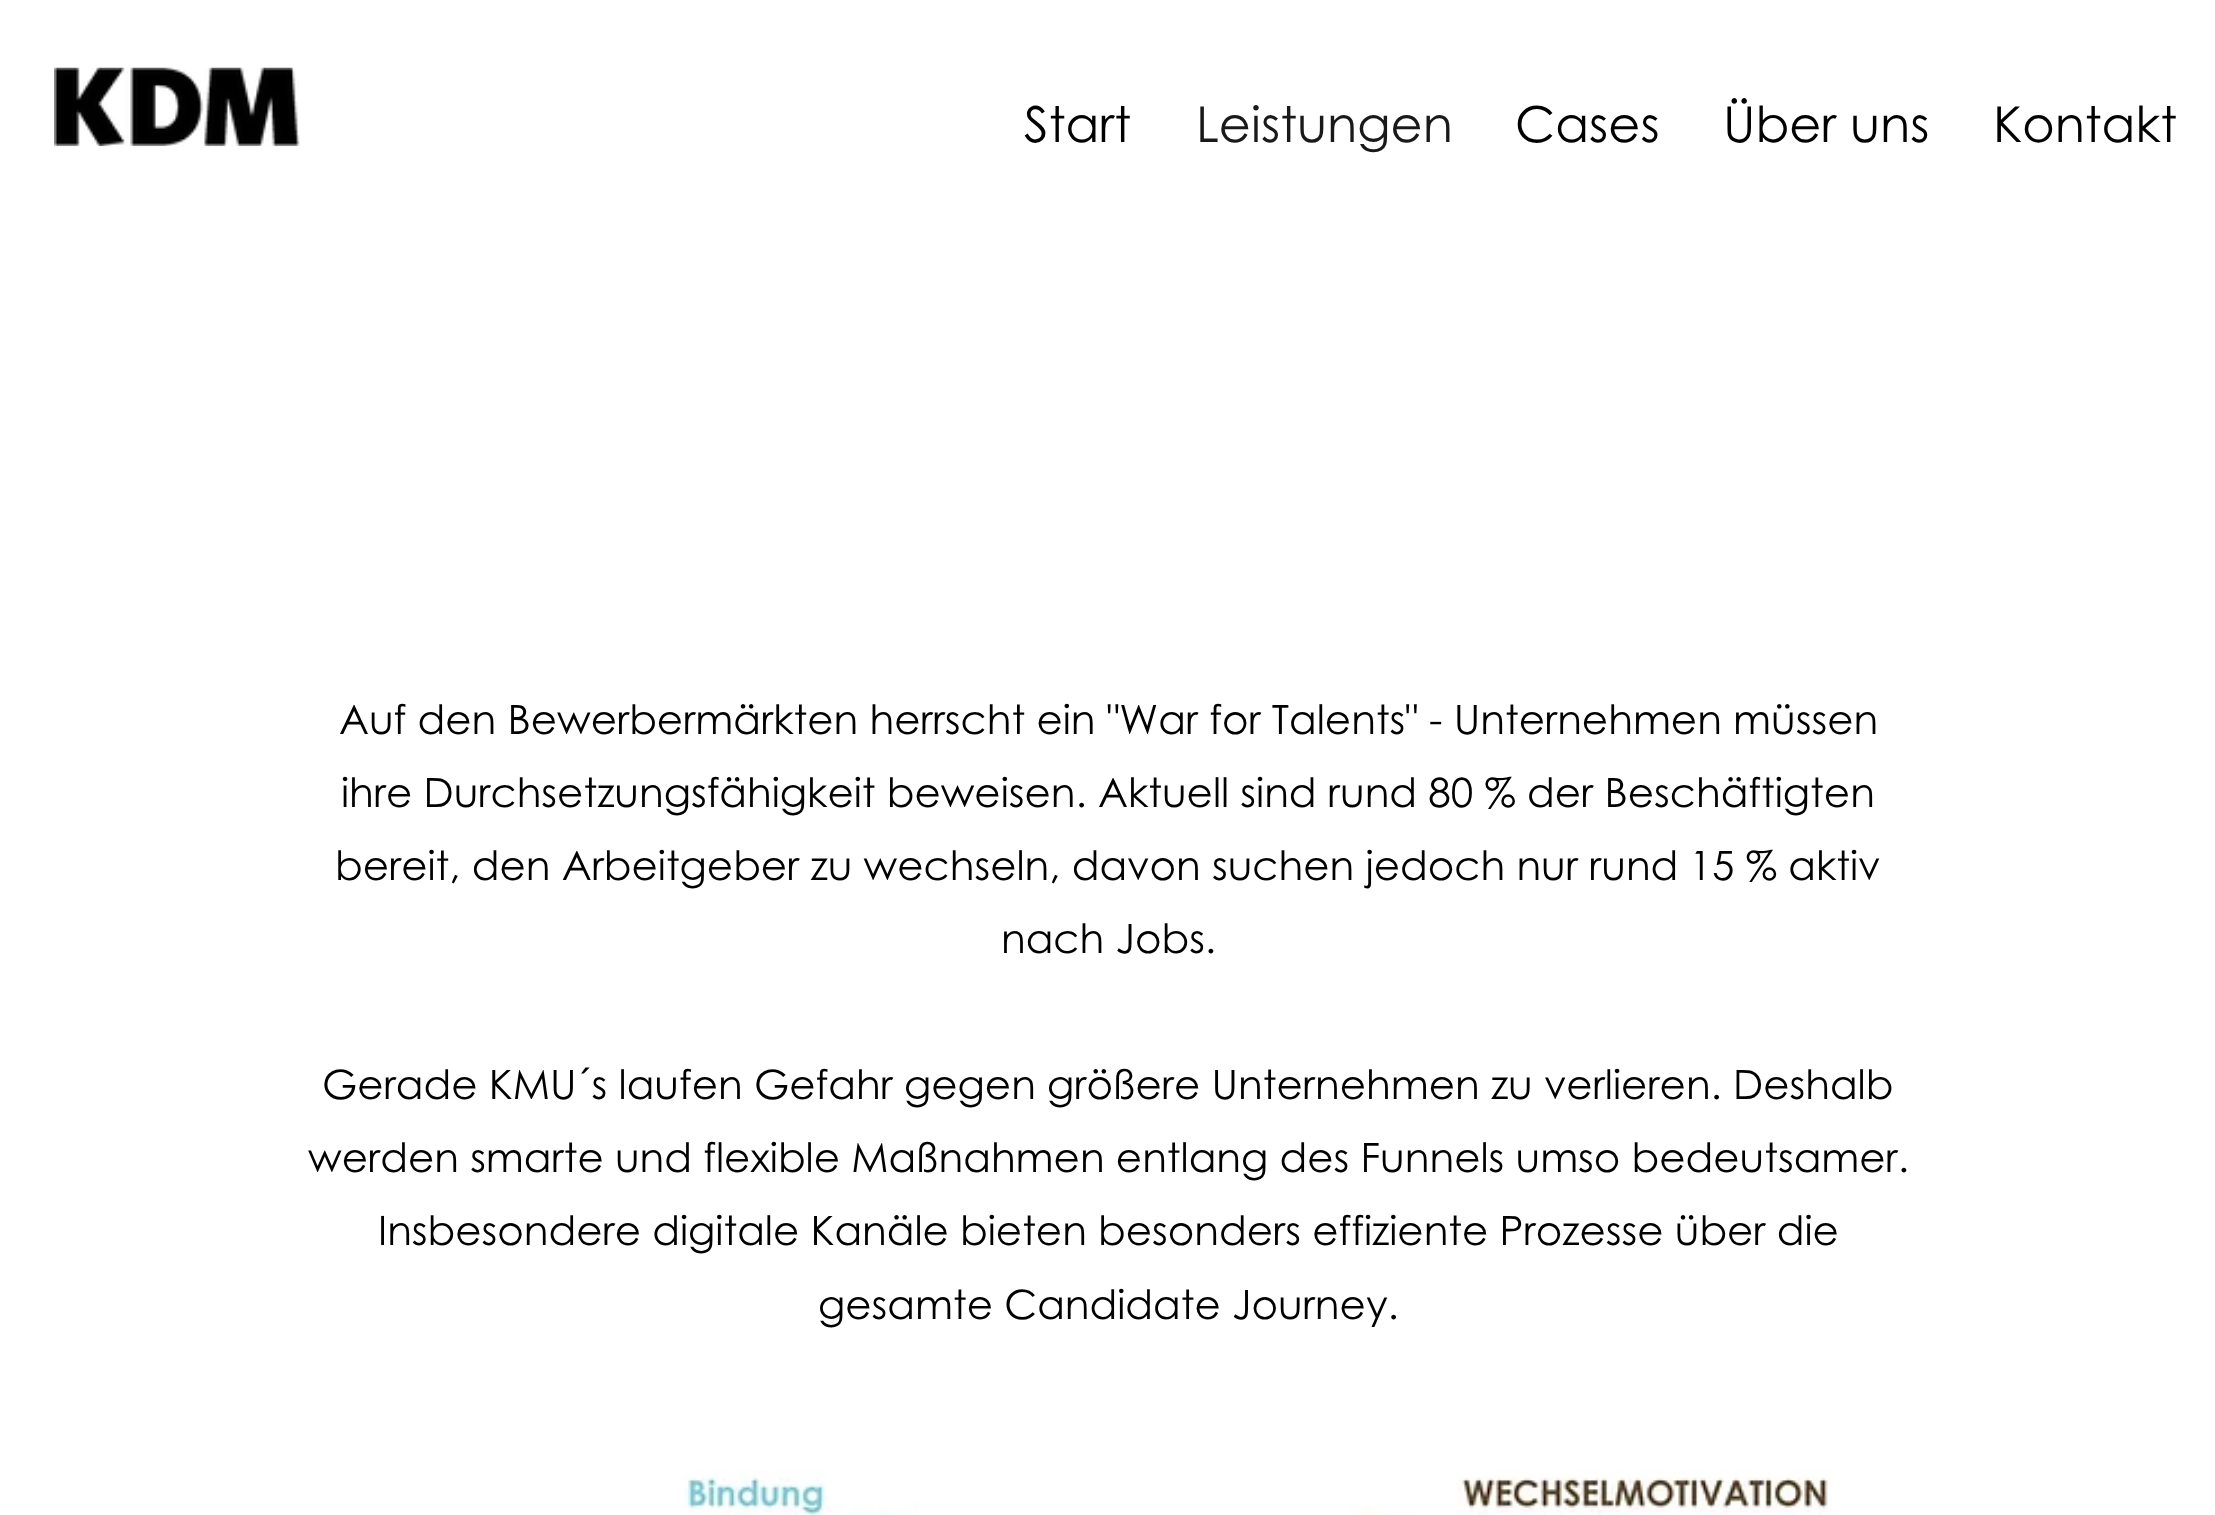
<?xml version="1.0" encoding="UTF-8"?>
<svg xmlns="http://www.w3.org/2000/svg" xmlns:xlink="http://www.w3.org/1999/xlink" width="2215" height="1515">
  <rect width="100%" height="100%" fill="#ffffff" />
  <image x="54" y="67" width="246" height="80" xlink:href="image1.png" />
  <image x="684" y="1470" width="1149" height="45" xlink:href="image2.png" />
  <text x="1024" y="142" style="font-family: Century Gothic; font-size: 49.5px; fill: #000000">Start</text>
  <text x="1196" y="142" style="font-family: Century Gothic; font-size: 49.5px; fill: #191919">Leistungen</text>
  <text x="1515" y="142" style="font-family: Century Gothic; font-size: 49.5px; fill: #000000">Cases</text>
  <text x="1723" y="142" style="font-family: Century Gothic; font-size: 49.5px; fill: #000000">Über uns</text>
  <text x="1993" y="142" style="font-family: Century Gothic; font-size: 49.5px; fill: #000000">Kontakt</text>
  <text x="339" y="734" style="font-family: Century Gothic; font-size: 40.5px; fill: #000000">Auf den Bewerbermärkten herrscht ein "War for Talents" - Unternehmen müssen</text>
  <text x="341" y="807" style="font-family: Century Gothic; font-size: 40.5px; fill: #000000">ihre Durchsetzungsfähigkeit beweisen. Aktuell sind rund 80 % der Beschäftigten</text>
  <text x="335" y="880" style="font-family: Century Gothic; font-size: 40.5px; fill: #000000">bereit, den Arbeitgeber zu wechseln, davon suchen jedoch nur rund 15 % aktiv</text>
  <text x="1001" y="953" style="font-family: Century Gothic; font-size: 40.5px; fill: #000000">nach Jobs.</text>
  <text x="322" y="1099" style="font-family: Century Gothic; font-size: 40.5px; fill: #000000">Gerade KMU´s laufen Gefahr gegen größere Unternehmen zu verlieren. Deshalb</text>
  <text x="308" y="1172" style="font-family: Century Gothic; font-size: 40.5px; fill: #000000">werden smarte und flexible Maßnahmen entlang des Funnels umso bedeutsamer.</text>
  <text x="378" y="1245" style="font-family: Century Gothic; font-size: 40.5px; fill: #000000">Insbesondere digitale Kanäle bieten besonders effiziente Prozesse über die</text>
  <text x="818" y="1319" style="font-family: Century Gothic; font-size: 40.5px; fill: #000000">gesamte Candidate Journey.</text>
</svg>
